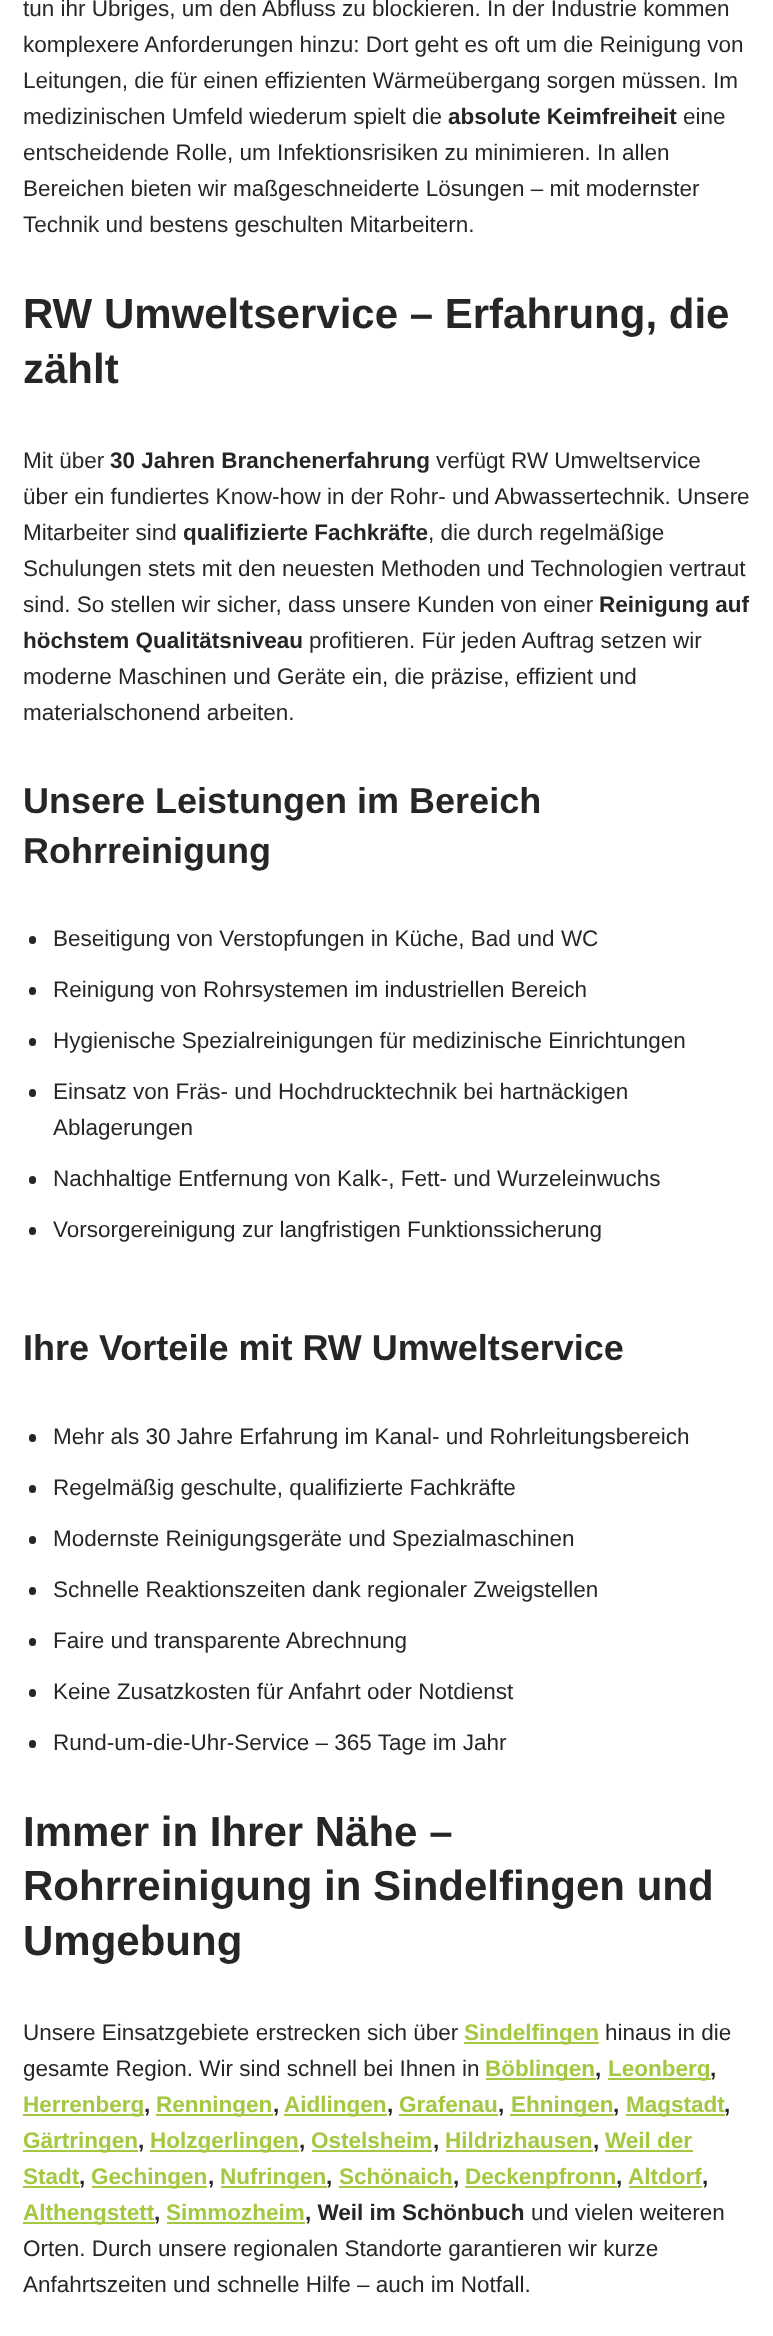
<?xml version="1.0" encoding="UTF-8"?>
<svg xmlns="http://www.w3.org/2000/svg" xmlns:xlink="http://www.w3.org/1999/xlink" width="773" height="2336">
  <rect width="100%" height="100%" fill="#ffffff" />
  <rect x="29" y="936" width="7" height="8" rx="3.5" fill="#272626" />
  <rect x="29" y="987" width="7" height="8" rx="3.5" fill="#272626" />
  <rect x="29" y="1038" width="7" height="8" rx="3.5" fill="#272626" />
  <rect x="29" y="1089" width="7" height="8" rx="3.5" fill="#272626" />
  <rect x="29" y="1176" width="7" height="8" rx="3.5" fill="#272626" />
  <rect x="29" y="1227" width="7" height="8" rx="3.5" fill="#272626" />
  <rect x="29" y="1434" width="7" height="8" rx="3.5" fill="#272626" />
  <rect x="29" y="1485" width="7" height="8" rx="3.5" fill="#272626" />
  <rect x="29" y="1536" width="7" height="8" rx="3.5" fill="#272626" />
  <rect x="29" y="1587" width="7" height="8" rx="3.5" fill="#272626" />
  <rect x="29" y="1638" width="7" height="8" rx="3.5" fill="#272626" />
  <rect x="29" y="1689" width="7" height="8" rx="3.5" fill="#272626" />
  <rect x="29" y="1740" width="7" height="8" rx="3.5" fill="#272626" />
  <rect x="464" y="2042" width="135" height="2" fill="#a4c842" />
  <rect x="486" y="2078" width="110" height="2" fill="#a4c842" />
  <rect x="608" y="2078" width="103" height="2" fill="#a4c842" />
  <rect x="23" y="2114" width="121" height="2" fill="#a4c842" />
  <rect x="156" y="2114" width="117" height="2" fill="#a4c842" />
  <rect x="284" y="2114" width="103" height="2" fill="#a4c842" />
  <rect x="399" y="2114" width="99" height="2" fill="#a4c842" />
  <rect x="510" y="2114" width="104" height="2" fill="#a4c842" />
  <rect x="626" y="2114" width="99" height="2" fill="#a4c842" />
  <rect x="23" y="2150" width="115" height="2" fill="#a4c842" />
  <rect x="150" y="2150" width="149" height="2" fill="#a4c842" />
  <rect x="312" y="2150" width="120" height="2" fill="#a4c842" />
  <rect x="446" y="2150" width="147" height="2" fill="#a4c842" />
  <rect x="605" y="2150" width="88" height="2" fill="#a4c842" />
  <rect x="23" y="2186" width="57" height="2" fill="#a4c842" />
  <rect x="92" y="2186" width="115" height="2" fill="#a4c842" />
  <rect x="221" y="2186" width="106" height="2" fill="#a4c842" />
  <rect x="339" y="2186" width="114" height="2" fill="#a4c842" />
  <rect x="465" y="2186" width="152" height="2" fill="#a4c842" />
  <rect x="629" y="2186" width="73" height="2" fill="#a4c842" />
  <rect x="23" y="2222" width="132" height="2" fill="#a4c842" />
  <rect x="167" y="2222" width="138" height="2" fill="#a4c842" />
  <text x="23" y="16" style="font-family: Liberation Sans; font-size: 22.5px; fill: #272626">tun ihr Übriges, um den Abfluss zu blockieren. In der Industrie kommen</text>
  <text x="23" y="52" style="font-family: Liberation Sans; font-size: 22.5px; fill: #272626">komplexere Anforderungen hinzu: Dort geht es oft um die Reinigung von</text>
  <text x="23" y="88" style="font-family: Liberation Sans; font-size: 22.5px; fill: #272626">Leitungen, die für einen effizienten Wärmeübergang sorgen müssen. Im</text>
  <text x="23" y="124" style="font-family: Liberation Sans; font-size: 22.5px; fill: #272626">medizinischen Umfeld wiederum spielt die</text>
  <text x="448" y="124" style="font-family: Liberation Sans; font-size: 22.5px; font-weight: bold; fill: #272626">absolute Keimfreiheit</text>
  <text x="683" y="124" style="font-family: Liberation Sans; font-size: 22.5px; fill: #272626">eine</text>
  <text x="23" y="160" style="font-family: Liberation Sans; font-size: 22.5px; fill: #272626">entscheidende Rolle, um Infektionsrisiken zu minimieren. In allen</text>
  <text x="23" y="196" style="font-family: Liberation Sans; font-size: 22.5px; fill: #272626">Bereichen bieten wir maßgeschneiderte Lösungen – mit modernster</text>
  <text x="23" y="232" style="font-family: Liberation Sans; font-size: 22.5px; fill: #272626">Technik und bestens geschulten Mitarbeitern.</text>
  <text x="23" y="328" style="font-family: Liberation Sans; font-size: 42px; font-weight: bold; fill: #272626">RW Umweltservice – Erfahrung, die</text>
  <text x="23" y="383" style="font-family: Liberation Sans; font-size: 42px; font-weight: bold; fill: #272626">zählt</text>
  <text x="23" y="468" style="font-family: Liberation Sans; font-size: 22.5px; fill: #272626">Mit über</text>
  <text x="110" y="468" style="font-family: Liberation Sans; font-size: 22.5px; font-weight: bold; fill: #272626">30 Jahren Branchenerfahrung</text>
  <text x="436" y="468" style="font-family: Liberation Sans; font-size: 22.5px; fill: #272626">verfügt RW Umweltservice</text>
  <text x="23" y="504" style="font-family: Liberation Sans; font-size: 22.5px; fill: #272626">über ein fundiertes Know-how in der Rohr- und Abwassertechnik. Unsere</text>
  <text x="23" y="540" style="font-family: Liberation Sans; font-size: 22.5px; fill: #272626">Mitarbeiter sind</text>
  <text x="183" y="540" style="font-family: Liberation Sans; font-size: 22.5px; font-weight: bold; fill: #272626">qualifizierte Fachkräfte</text>
  <text x="428" y="540" style="font-family: Liberation Sans; font-size: 22.5px; fill: #272626">, die durch regelmäßige</text>
  <text x="23" y="576" style="font-family: Liberation Sans; font-size: 22.5px; fill: #272626">Schulungen stets mit den neuesten Methoden und Technologien vertraut</text>
  <text x="23" y="612" style="font-family: Liberation Sans; font-size: 22.5px; fill: #272626">sind. So stellen wir sicher, dass unsere Kunden von einer</text>
  <text x="599" y="612" style="font-family: Liberation Sans; font-size: 22.5px; font-weight: bold; fill: #272626">Reinigung auf</text>
  <text x="23" y="648" style="font-family: Liberation Sans; font-size: 22.5px; font-weight: bold; fill: #272626">höchstem Qualitätsniveau</text>
  <text x="309" y="648" style="font-family: Liberation Sans; font-size: 22.5px; fill: #272626">profitieren. Für jeden Auftrag setzen wir</text>
  <text x="23" y="684" style="font-family: Liberation Sans; font-size: 22.5px; fill: #272626">moderne Maschinen und Geräte ein, die präzise, effizient und</text>
  <text x="23" y="720" style="font-family: Liberation Sans; font-size: 22.5px; fill: #272626">materialschonend arbeiten.</text>
  <text x="23" y="813" style="font-family: Liberation Sans; font-size: 36px; font-weight: bold; fill: #272626">Unsere Leistungen im Bereich</text>
  <text x="23" y="863" style="font-family: Liberation Sans; font-size: 36px; font-weight: bold; fill: #272626">Rohrreinigung</text>
  <text x="53" y="946" style="font-family: Liberation Sans; font-size: 22.5px; fill: #272626">Beseitigung von Verstopfungen in Küche, Bad und WC</text>
  <text x="53" y="997" style="font-family: Liberation Sans; font-size: 22.5px; fill: #272626">Reinigung von Rohrsystemen im industriellen Bereich</text>
  <text x="53" y="1048" style="font-family: Liberation Sans; font-size: 22.5px; fill: #272626">Hygienische Spezialreinigungen für medizinische Einrichtungen</text>
  <text x="53" y="1099" style="font-family: Liberation Sans; font-size: 22.5px; fill: #272626">Einsatz von Fräs- und Hochdrucktechnik bei hartnäckigen</text>
  <text x="53" y="1135" style="font-family: Liberation Sans; font-size: 22.5px; fill: #272626">Ablagerungen</text>
  <text x="53" y="1186" style="font-family: Liberation Sans; font-size: 22.5px; fill: #272626">Nachhaltige Entfernung von Kalk-, Fett- und Wurzeleinwuchs</text>
  <text x="53" y="1237" style="font-family: Liberation Sans; font-size: 22.5px; fill: #272626">Vorsorgereinigung zur langfristigen Funktionssicherung</text>
  <text x="23" y="1360" style="font-family: Liberation Sans; font-size: 36px; font-weight: bold; fill: #272626">Ihre Vorteile mit RW Umweltservice</text>
  <text x="53" y="1444" style="font-family: Liberation Sans; font-size: 22.5px; fill: #272626">Mehr als 30 Jahre Erfahrung im Kanal- und Rohrleitungsbereich</text>
  <text x="53" y="1495" style="font-family: Liberation Sans; font-size: 22.5px; fill: #272626">Regelmäßig geschulte, qualifizierte Fachkräfte</text>
  <text x="53" y="1546" style="font-family: Liberation Sans; font-size: 22.5px; fill: #272626">Modernste Reinigungsgeräte und Spezialmaschinen</text>
  <text x="53" y="1597" style="font-family: Liberation Sans; font-size: 22.5px; fill: #272626">Schnelle Reaktionszeiten dank regionaler Zweigstellen</text>
  <text x="53" y="1648" style="font-family: Liberation Sans; font-size: 22.5px; fill: #272626">Faire und transparente Abrechnung</text>
  <text x="53" y="1699" style="font-family: Liberation Sans; font-size: 22.5px; fill: #272626">Keine Zusatzkosten für Anfahrt oder Notdienst</text>
  <text x="53" y="1750" style="font-family: Liberation Sans; font-size: 22.5px; fill: #272626">Rund-um-die-Uhr-Service – 365 Tage im Jahr</text>
  <text x="23" y="1846" style="font-family: Liberation Sans; font-size: 42px; font-weight: bold; fill: #272626">Immer in Ihrer Nähe –</text>
  <text x="23" y="1900" style="font-family: Liberation Sans; font-size: 42px; font-weight: bold; fill: #272626">Rohrreinigung in Sindelfingen und</text>
  <text x="23" y="1955" style="font-family: Liberation Sans; font-size: 42px; font-weight: bold; fill: #272626">Umgebung</text>
  <text x="23" y="2040" style="font-family: Liberation Sans; font-size: 22.5px; fill: #272626">Unsere Einsatzgebiete erstrecken sich über</text>
  <text x="464" y="2040" style="font-family: Liberation Sans; font-size: 22.5px; font-weight: bold; fill: #a4c842">Sindelfingen</text>
  <text x="605" y="2040" style="font-family: Liberation Sans; font-size: 22.5px; fill: #272626">hinaus in die</text>
  <text x="23" y="2076" style="font-family: Liberation Sans; font-size: 22.5px; fill: #272626">gesamte Region. Wir sind schnell bei Ihnen in</text>
  <text x="485" y="2076" style="font-family: Liberation Sans; font-size: 22.5px; font-weight: bold; fill: #a4c842">Böblingen</text>
  <text x="595" y="2076" style="font-family: Liberation Sans; font-size: 22.5px; font-weight: bold; fill: #272626">,</text>
  <text x="608" y="2076" style="font-family: Liberation Sans; font-size: 22.5px; font-weight: bold; fill: #a4c842">Leonberg</text>
  <text x="710" y="2076" style="font-family: Liberation Sans; font-size: 22.5px; font-weight: bold; fill: #272626">,</text>
  <text x="23" y="2112" style="font-family: Liberation Sans; font-size: 22.5px; font-weight: bold; fill: #a4c842">Herrenberg</text>
  <text x="144" y="2112" style="font-family: Liberation Sans; font-size: 22.5px; font-weight: bold; fill: #272626">,</text>
  <text x="156" y="2112" style="font-family: Liberation Sans; font-size: 22.5px; font-weight: bold; fill: #a4c842">Renningen</text>
  <text x="273" y="2112" style="font-family: Liberation Sans; font-size: 22.5px; font-weight: bold; fill: #272626">,</text>
  <text x="284" y="2112" style="font-family: Liberation Sans; font-size: 22.5px; font-weight: bold; fill: #a4c842">Aidlingen</text>
  <text x="387" y="2112" style="font-family: Liberation Sans; font-size: 22.5px; font-weight: bold; fill: #272626">,</text>
  <text x="399" y="2112" style="font-family: Liberation Sans; font-size: 22.5px; font-weight: bold; fill: #a4c842">Grafenau</text>
  <text x="498" y="2112" style="font-family: Liberation Sans; font-size: 22.5px; font-weight: bold; fill: #272626">,</text>
  <text x="511" y="2112" style="font-family: Liberation Sans; font-size: 22.5px; font-weight: bold; fill: #a4c842">Ehningen</text>
  <text x="613" y="2112" style="font-family: Liberation Sans; font-size: 22.5px; font-weight: bold; fill: #272626">,</text>
  <text x="626" y="2112" style="font-family: Liberation Sans; font-size: 22.5px; font-weight: bold; fill: #a4c842">Magstadt</text>
  <text x="724" y="2112" style="font-family: Liberation Sans; font-size: 22.5px; font-weight: bold; fill: #272626">,</text>
  <text x="23" y="2148" style="font-family: Liberation Sans; font-size: 22.5px; font-weight: bold; fill: #a4c842">Gärtringen</text>
  <text x="138" y="2148" style="font-family: Liberation Sans; font-size: 22.5px; font-weight: bold; fill: #272626">,</text>
  <text x="150" y="2148" style="font-family: Liberation Sans; font-size: 22.5px; font-weight: bold; fill: #a4c842">Holzgerlingen</text>
  <text x="299" y="2148" style="font-family: Liberation Sans; font-size: 22.5px; font-weight: bold; fill: #272626">,</text>
  <text x="311" y="2148" style="font-family: Liberation Sans; font-size: 22.5px; font-weight: bold; fill: #a4c842">Ostelsheim</text>
  <text x="433" y="2148" style="font-family: Liberation Sans; font-size: 22.5px; font-weight: bold; fill: #272626">,</text>
  <text x="445" y="2148" style="font-family: Liberation Sans; font-size: 22.5px; font-weight: bold; fill: #a4c842">Hildrizhausen</text>
  <text x="593" y="2148" style="font-family: Liberation Sans; font-size: 22.5px; font-weight: bold; fill: #272626">,</text>
  <text x="605" y="2148" style="font-family: Liberation Sans; font-size: 22.5px; font-weight: bold; fill: #a4c842">Weil der</text>
  <text x="23" y="2184" style="font-family: Liberation Sans; font-size: 22.5px; font-weight: bold; fill: #a4c842">Stadt</text>
  <text x="79" y="2184" style="font-family: Liberation Sans; font-size: 22.5px; font-weight: bold; fill: #272626">,</text>
  <text x="91" y="2184" style="font-family: Liberation Sans; font-size: 22.5px; font-weight: bold; fill: #a4c842">Gechingen</text>
  <text x="208" y="2184" style="font-family: Liberation Sans; font-size: 22.5px; font-weight: bold; fill: #272626">,</text>
  <text x="220" y="2184" style="font-family: Liberation Sans; font-size: 22.5px; font-weight: bold; fill: #a4c842">Nufringen</text>
  <text x="326" y="2184" style="font-family: Liberation Sans; font-size: 22.5px; font-weight: bold; fill: #272626">,</text>
  <text x="339" y="2184" style="font-family: Liberation Sans; font-size: 22.5px; font-weight: bold; fill: #a4c842">Schönaich</text>
  <text x="453" y="2184" style="font-family: Liberation Sans; font-size: 22.5px; font-weight: bold; fill: #272626">,</text>
  <text x="465" y="2184" style="font-family: Liberation Sans; font-size: 22.5px; font-weight: bold; fill: #a4c842">Deckenpfronn</text>
  <text x="616" y="2184" style="font-family: Liberation Sans; font-size: 22.5px; font-weight: bold; fill: #272626">,</text>
  <text x="628" y="2184" style="font-family: Liberation Sans; font-size: 22.5px; font-weight: bold; fill: #a4c842">Altdorf</text>
  <text x="702" y="2184" style="font-family: Liberation Sans; font-size: 22.5px; font-weight: bold; fill: #272626">,</text>
  <text x="23" y="2220" style="font-family: Liberation Sans; font-size: 22.5px; font-weight: bold; fill: #a4c842">Althengstett</text>
  <text x="154" y="2220" style="font-family: Liberation Sans; font-size: 22.5px; font-weight: bold; fill: #272626">,</text>
  <text x="166" y="2220" style="font-family: Liberation Sans; font-size: 22.5px; font-weight: bold; fill: #a4c842">Simmozheim</text>
  <text x="305" y="2220" style="font-family: Liberation Sans; font-size: 22.5px; font-weight: bold; fill: #272626">, Weil im Schönbuch</text>
  <text x="531" y="2220" style="font-family: Liberation Sans; font-size: 22.5px; fill: #272626">und vielen weiteren</text>
  <text x="23" y="2256" style="font-family: Liberation Sans; font-size: 22.5px; fill: #272626">Orten. Durch unsere regionalen Standorte garantieren wir kurze</text>
  <text x="23" y="2292" style="font-family: Liberation Sans; font-size: 22.5px; fill: #272626">Anfahrtszeiten und schnelle Hilfe – auch im Notfall.</text>
</svg>
